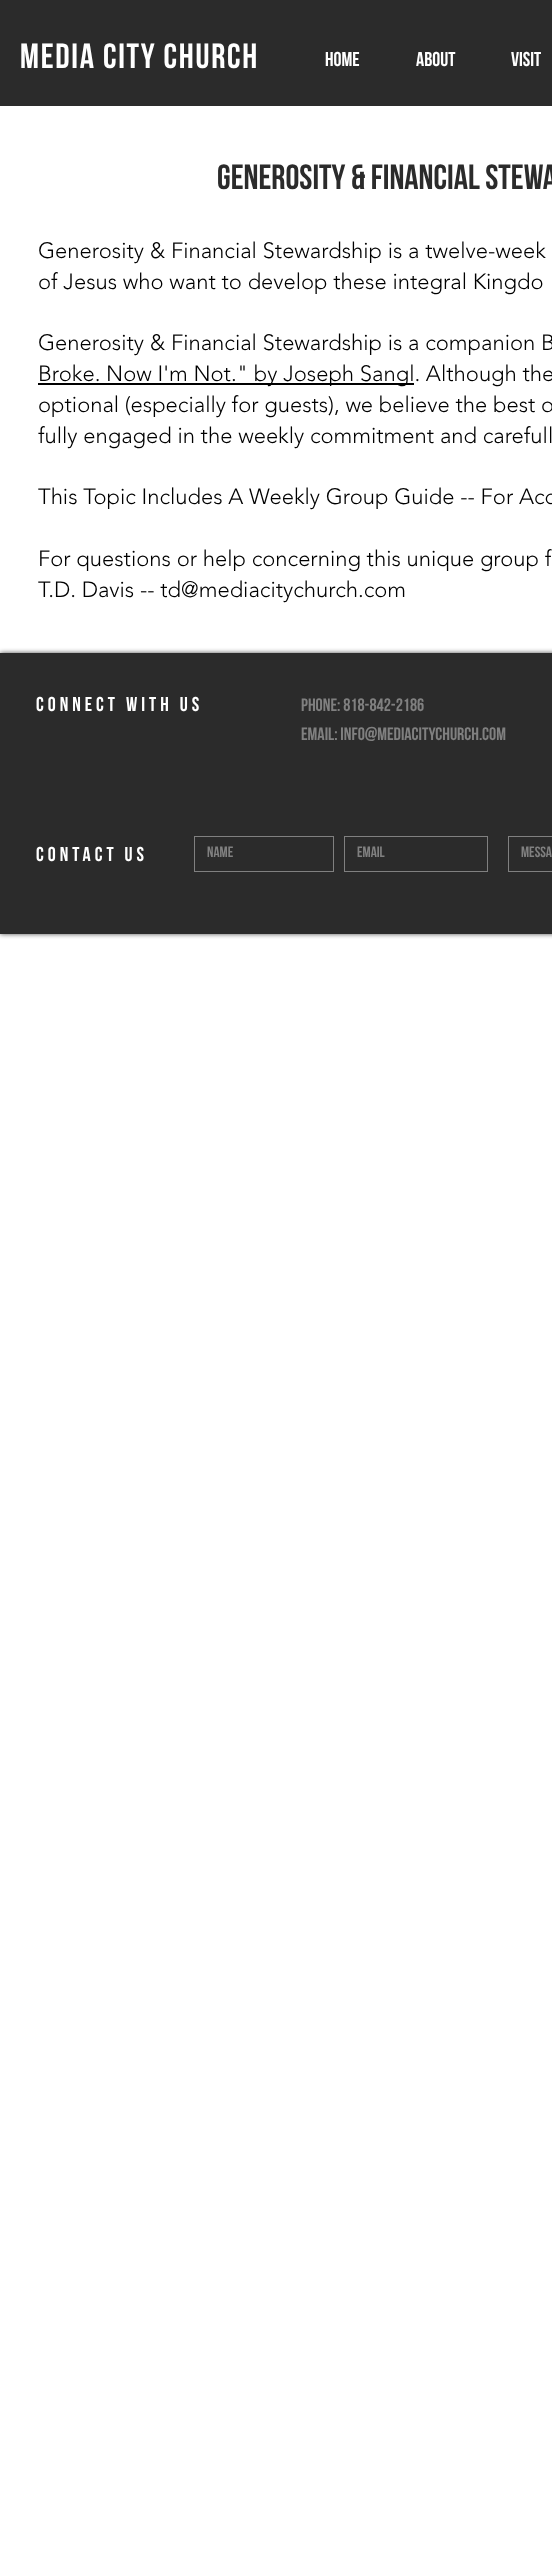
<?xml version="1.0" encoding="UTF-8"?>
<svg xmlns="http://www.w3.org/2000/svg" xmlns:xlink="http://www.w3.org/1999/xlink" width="552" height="2558">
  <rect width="100%" height="100%" fill="#ffffff" />
  <rect width="552" height="106" fill="#2b2b2b" />
  <rect x="38" y="383" width="376" height="2" fill="#000000" />
  <rect y="653" width="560" height="281" fill="#000000" fill-opacity="0.7" filter="blur(2.5px)" />
  <rect y="653" width="552" height="281" fill="#2b2b2b" />
  <rect x="194.5" y="836.5" width="139" height="35" fill="none" stroke="#808080" />
  <rect x="344.5" y="836.5" width="143" height="35" fill="none" stroke="#808080" />
  <rect x="508.5" y="836.5" width="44" height="35" fill="none" stroke="#808080" />
  <text x="20" y="68" style="font-family: Bebas Neue; font-size: 35px; font-weight: bold; letter-spacing: 1.75px; fill: #ffffff">MEDIA CITY CHURCH</text>
  <text x="325" y="66" style="font-family: Bebas Neue; font-size: 20px; font-weight: bold; fill: #ffffff">HOME</text>
  <text x="416" y="66" style="font-family: Bebas Neue; font-size: 20px; font-weight: bold; fill: #ffffff">ABOUT</text>
  <text x="511" y="66" style="font-family: Bebas Neue; font-size: 20px; font-weight: bold; fill: #ffffff">VISIT</text>
  <text x="217" y="189" style="font-family: Bebas Neue; font-size: 35px; font-weight: bold; fill: #2b2b2b">GENEROSITY &amp; FINANCIAL STEWA</text>
  <text x="38" y="258" style="font-family: 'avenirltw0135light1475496'; font-size: 22px; font-weight: 300; fill: #000000">Generosity &amp; Financial Stewardship is a twelve-week</text>
  <text x="38" y="289" style="font-family: 'avenirltw0135light1475496'; font-size: 22px; font-weight: 300; fill: #000000">of Jesus who want to develop these integral Kingdo</text>
  <text x="38" y="350" style="font-family: 'avenirltw0135light1475496'; font-size: 22px; font-weight: 300; fill: #000000">Generosity &amp; Financial Stewardship is a companion B</text>
  <text x="38" y="381" style="font-family: 'avenirltw0135light1475496'; font-size: 22px; font-weight: 300; fill: #000000">Broke. Now I'm Not." by Joseph Sangl. Although the</text>
  <text x="38" y="412" style="font-family: 'avenirltw0135light1475496'; font-size: 22px; font-weight: 300; fill: #000000">optional (especially for guests), we believe the best o</text>
  <text x="38" y="443" style="font-family: 'avenirltw0135light1475496'; font-size: 22px; font-weight: 300; fill: #000000">fully engaged in the weekly commitment and carefull</text>
  <text x="38" y="504" style="font-family: 'avenirltw0135light1475496'; font-size: 22px; font-weight: 300; fill: #000000">This Topic Includes A Weekly Group Guide -- For Acc</text>
  <text x="38" y="566" style="font-family: 'avenirltw0135light1475496'; font-size: 22px; font-weight: 300; fill: #000000">For questions or help concerning this unique group f</text>
  <text x="38" y="597" style="font-family: 'avenirltw0135light1475496'; font-size: 22px; font-weight: 300; fill: #000000">T.D. Davis -- td@mediacitychurch.com</text>
  <text x="36" y="711" style="font-family: Bebas Neue; font-size: 20px; font-weight: bold; letter-spacing: 4px; fill: #ffffff">CONNECT WITH US</text>
  <text x="301" y="711" style="font-family: Bebas Neue; font-size: 18px; font-weight: bold; fill: #808080">Phone: 818-842-2186</text>
  <text x="301" y="740" style="font-family: Bebas Neue; font-size: 18px; font-weight: bold; fill: #808080">Email: info@mediacitychurch.com</text>
  <text x="36" y="861" style="font-family: Bebas Neue; font-size: 20px; font-weight: bold; letter-spacing: 4px; fill: #ffffff">CONTACT US</text>
  <text x="207" y="857" style="font-family: Bebas Neue; font-size: 15px; font-weight: bold; fill: #808080">Name</text>
  <text x="357" y="857" style="font-family: Bebas Neue; font-size: 15px; font-weight: bold; fill: #808080">Email</text>
  <text x="521" y="857" style="font-family: Bebas Neue; font-size: 15px; font-weight: bold; fill: #808080">MESSA</text>
</svg>
